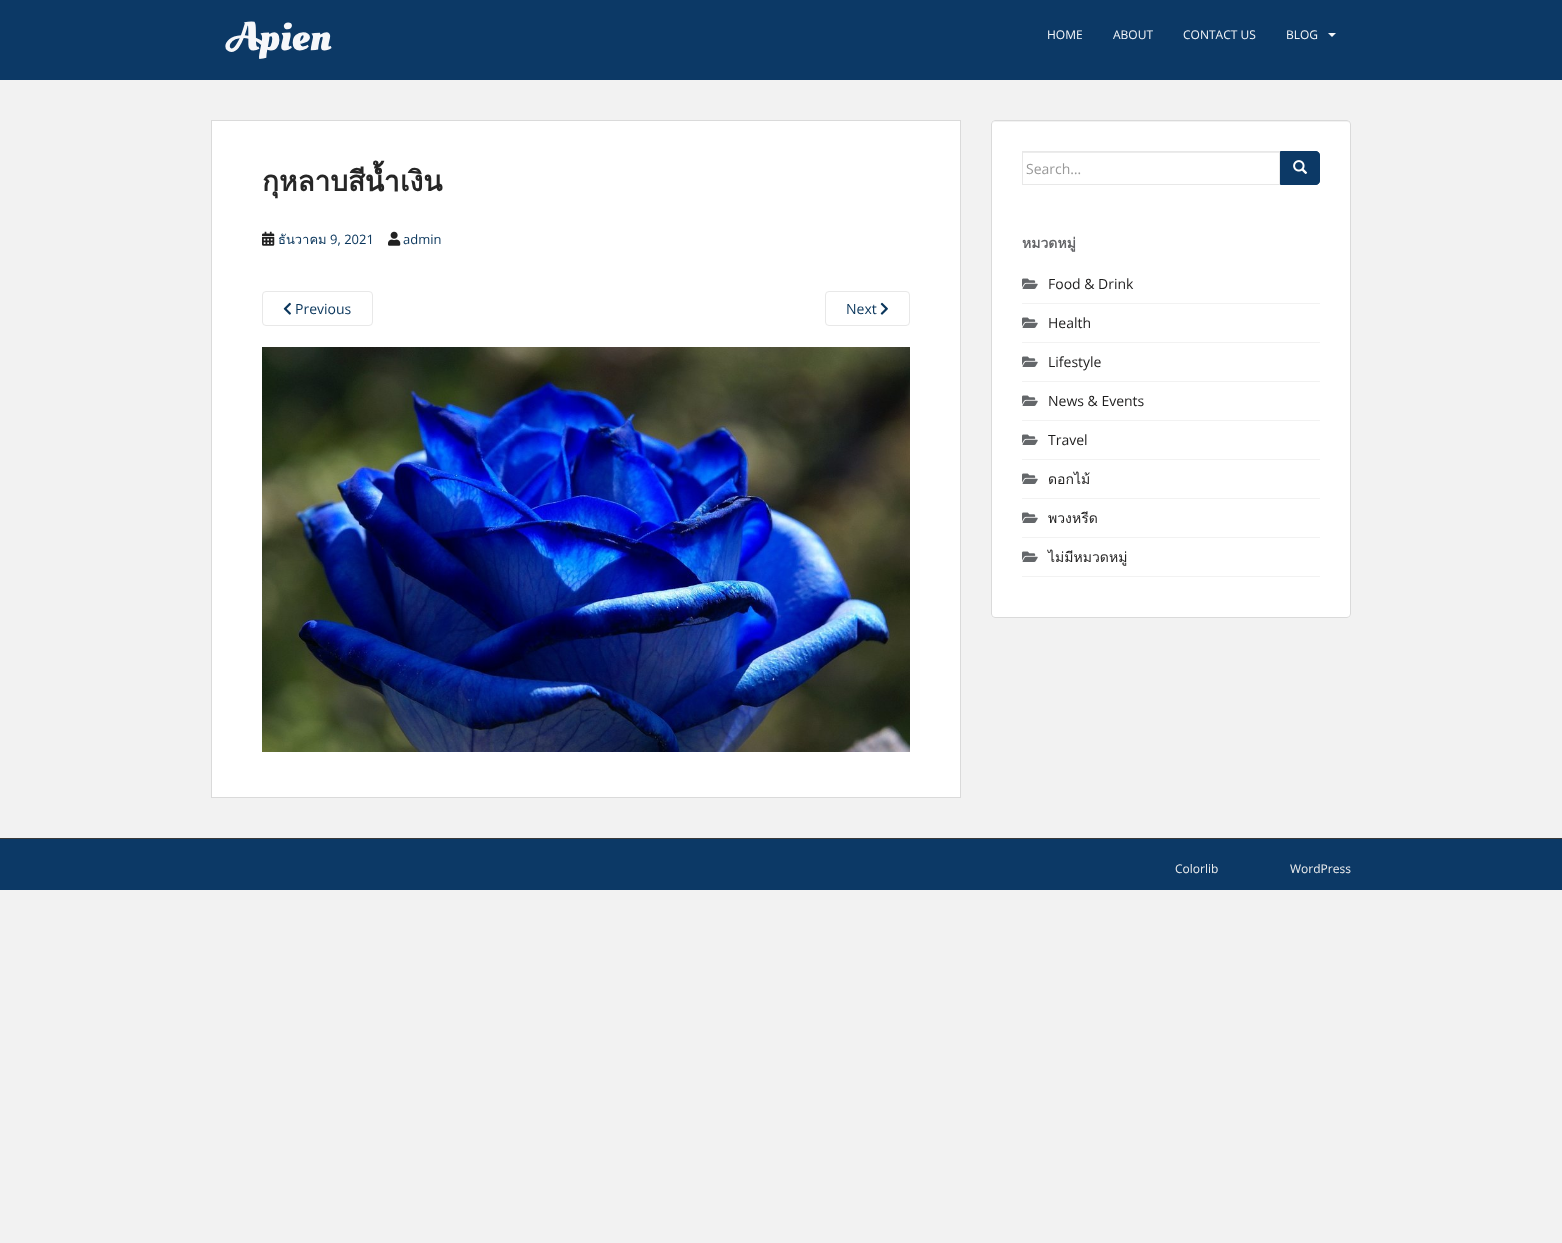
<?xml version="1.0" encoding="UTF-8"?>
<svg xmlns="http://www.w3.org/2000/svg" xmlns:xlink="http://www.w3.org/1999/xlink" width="1562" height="1243">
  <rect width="100%" height="100%" fill="#f2f2f2" />
  <rect width="1562" height="80" fill="#0c3966" />
  <image x="225" y="21" width="107" height="38" xlink:href="image1.png" />
  <path d="M 1328 33 h 8 l -4 4 z" fill="#f5f7fa" />
  <rect x="211.5" y="120.5" width="749" height="677" fill="#ffffff" stroke="#dadada" />
  <image x="262" y="231" width="13" height="15" xlink:href="image2.png" />
  <image x="388" y="231" width="13" height="15" xlink:href="image3.png" />
  <rect x="262.5" y="291.5" width="110" height="34" rx="3.5" fill="none" stroke="#e8e8e8" />
  <image x="283" y="302" width="8" height="13" xlink:href="image4.png" />
  <rect x="825.5" y="291.5" width="84" height="34" rx="3.5" fill="none" stroke="#e8e8e8" />
  <image x="880" y="302" width="8" height="13" xlink:href="image5.png" />
  <image x="262" y="347" width="648" height="405" xlink:href="image6.png" />
  <rect x="991" y="120" width="360" height="498" rx="4" fill="#ffffff" />
  <path d="M 995 122 h 352 c 2 0 3 1 3 3 c 0 -2 -1 -4 -3 -4 h -352 l -2 1 l -1 3 c 0 -2 1 -3 3 -3 z" fill="#f2f2f2" />
  <rect x="991.5" y="120.5" width="359" height="497" rx="3.5" fill="none" stroke="#dadada" />
  <rect x="1023" y="152" width="256" height="1" fill="#ececec" />
  <rect x="1022.5" y="151.5" width="257" height="33" fill="none" stroke="#e8e8e8" />
  <path d="M 1280.5 151.5 h 35.5 c 2 0 3.5 1.5 3.5 3.5 v 26 c 0 2 -1.5 3.5 -3.5 3.5 h -35.5 z" fill="#0c3966" stroke="#0c3966" />
  <image x="1293" y="160" width="15" height="14" xlink:href="image7.png" />
  <rect x="1022" y="303" width="298" height="1" fill="#f2f2f2" />
  <image x="1022" y="278" width="16" height="11" xlink:href="image8.png" />
  <rect x="1022" y="342" width="298" height="1" fill="#f2f2f2" />
  <image x="1022" y="317" width="16" height="11" xlink:href="image8.png" />
  <rect x="1022" y="381" width="298" height="1" fill="#f2f2f2" />
  <image x="1022" y="356" width="16" height="11" xlink:href="image8.png" />
  <rect x="1022" y="420" width="298" height="1" fill="#f2f2f2" />
  <image x="1022" y="395" width="16" height="11" xlink:href="image8.png" />
  <rect x="1022" y="459" width="298" height="1" fill="#f2f2f2" />
  <image x="1022" y="434" width="16" height="11" xlink:href="image8.png" />
  <rect x="1022" y="498" width="298" height="1" fill="#f2f2f2" />
  <image x="1022" y="473" width="16" height="11" xlink:href="image8.png" />
  <rect x="1022" y="537" width="298" height="1" fill="#f2f2f2" />
  <image x="1022" y="512" width="16" height="11" xlink:href="image8.png" />
  <rect x="1022" y="576" width="298" height="1" fill="#f2f2f2" />
  <image x="1022" y="551" width="16" height="11" xlink:href="image8.png" />
  <rect y="839" width="1562" height="51" fill="#0c3966" />
  <rect y="838" width="1562" height="1" fill="#3a3a3a" />
  <text x="1047" y="39" style="font-family: Open Sans; font-size: 12px; fill: #f5f7fa">HOME</text>
  <text x="1113" y="39" style="font-family: Open Sans; font-size: 12px; fill: #f5f7fa">ABOUT</text>
  <text x="1183" y="39" style="font-family: Open Sans; font-size: 12px; fill: #f5f7fa">CONTACT US</text>
  <text x="1286" y="39" style="font-family: Open Sans; font-size: 12px; fill: #f5f7fa">BLOG</text>
  <text x="262" y="191" style="font-family: Loma; font-size: 28px; font-weight: bold; fill: #262626">กุหลาบสีน้ำเงิน</text>
  <text x="278" y="244" style="font-family: Loma; font-size: 13px; fill: #09355b">ธันวาคม</text>
  <text x="330" y="244" style="font-family: Open Sans; font-size: 13px; fill: #09355b">9, 2021</text>
  <text x="403" y="244" style="font-family: Open Sans; font-size: 13px; fill: #09355b">admin</text>
  <text x="295" y="314" style="font-family: Open Sans; font-size: 14px; fill: #09355b">Previous</text>
  <text x="846" y="314" style="font-family: Open Sans; font-size: 14px; fill: #09355b">Next</text>
  <text x="1026" y="174" style="font-family: Open Sans; font-size: 14px; fill: #999999">Search…</text>
  <text x="1022" y="248" style="font-family: Loma; font-size: 14px; font-weight: bold; fill: #636467">หมวดหมู่</text>
  <text x="1048" y="289" style="font-family: Open Sans; font-size: 14px; fill: #1e1d1d">Food &amp; Drink</text>
  <text x="1048" y="328" style="font-family: Open Sans; font-size: 14px; fill: #1e1d1d">Health</text>
  <text x="1048" y="367" style="font-family: Open Sans; font-size: 14px; fill: #1e1d1d">Lifestyle</text>
  <text x="1048" y="406" style="font-family: Open Sans; font-size: 14px; fill: #1e1d1d">News &amp; Events</text>
  <text x="1048" y="445" style="font-family: Open Sans; font-size: 14px; fill: #1e1d1d">Travel</text>
  <text x="1048" y="484" style="font-family: Loma; font-size: 14px; fill: #1e1d1d">ดอกไม้</text>
  <text x="1048" y="523" style="font-family: Loma; font-size: 14px; fill: #1e1d1d">พวงหรีด</text>
  <text x="1048" y="562" style="font-family: Loma; font-size: 14px; fill: #1e1d1d">ไม่มีหมวดหมู่</text>
  <text x="1175" y="873" style="font-family: Open Sans; font-size: 12px; fill: #efefef">Colorlib</text>
  <text x="1290" y="873" style="font-family: Open Sans; font-size: 12px; fill: #efefef">WordPress</text>
</svg>
